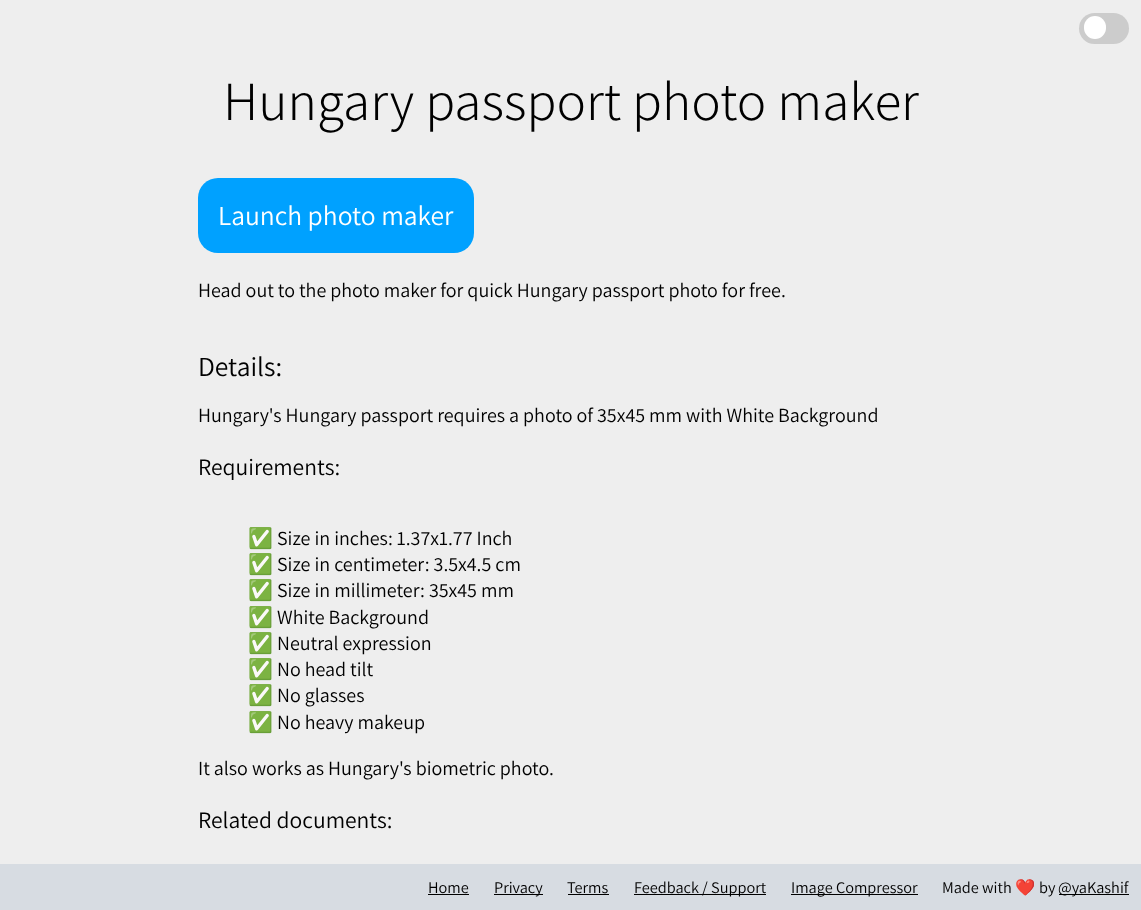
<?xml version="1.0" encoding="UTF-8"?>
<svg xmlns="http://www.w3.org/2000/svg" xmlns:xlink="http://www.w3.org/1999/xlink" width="1141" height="910">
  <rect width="100%" height="100%" fill="#eeeeee" />
  <rect x="1079" y="13" width="50" height="31" rx="15.5" fill="#cccccc" />
  <rect x="1084" y="16" width="22" height="23" rx="11" fill="#ffffff" />
  <rect x="198" y="178" width="276" height="75" rx="20" fill="#00a1ff" />
  <rect y="864" width="1141" height="46" fill="#d7dce2" />
  <rect x="428" y="894" width="41" height="1" fill="#000000" />
  <rect x="494" y="894" width="49" height="1" fill="#000000" />
  <rect x="568" y="894" width="41" height="1" fill="#000000" />
  <rect x="634" y="894" width="132" height="1" fill="#000000" />
  <rect x="791" y="894" width="127" height="1" fill="#000000" />
  <rect x="1059" y="894" width="70" height="1" fill="#000000" />
  <text x="223" y="120" style="font-family: Assistant; font-size: 55px; font-weight: 300; fill: #000000">Hungary passport photo maker</text>
  <text x="218" y="225" style="font-family: Assistant; font-size: 27.5px; fill: #ffffff">Launch photo maker</text>
  <text x="198" y="297" style="font-family: Assistant; font-size: 20px; fill: #000000">Head out to the photo maker for quick Hungary passport photo for free.</text>
  <text x="198" y="376" style="font-family: Assistant; font-size: 27.5px; fill: #000000">Details:</text>
  <text x="198" y="422" style="font-family: Assistant; font-size: 20px; fill: #000000">Hungary's Hungary passport requires a photo of 35x45 mm with White Background</text>
  <text x="198" y="475" style="font-family: Assistant; font-size: 23.5px; fill: #000000">Requirements:</text>
  <text x="248" y="545" style="font-family: Noto Color Emoji; font-size: 20px; fill: #000000">✅</text>
  <text x="277" y="545" style="font-family: Assistant; font-size: 20px; fill: #000000">Size in inches: 1.37x1.77 Inch</text>
  <text x="248" y="571" style="font-family: Noto Color Emoji; font-size: 20px; fill: #000000">✅</text>
  <text x="277" y="571" style="font-family: Assistant; font-size: 20px; fill: #000000">Size in centimeter: 3.5x4.5 cm</text>
  <text x="248" y="597" style="font-family: Noto Color Emoji; font-size: 20px; fill: #000000">✅</text>
  <text x="277" y="597" style="font-family: Assistant; font-size: 20px; fill: #000000">Size in millimeter: 35x45 mm</text>
  <text x="248" y="624" style="font-family: Noto Color Emoji; font-size: 20px; fill: #000000">✅</text>
  <text x="277" y="624" style="font-family: Assistant; font-size: 20px; fill: #000000">White Background</text>
  <text x="248" y="650" style="font-family: Noto Color Emoji; font-size: 20px; fill: #000000">✅</text>
  <text x="277" y="650" style="font-family: Assistant; font-size: 20px; fill: #000000">Neutral expression</text>
  <text x="248" y="676" style="font-family: Noto Color Emoji; font-size: 20px; fill: #000000">✅</text>
  <text x="277" y="676" style="font-family: Assistant; font-size: 20px; fill: #000000">No head tilt</text>
  <text x="248" y="702" style="font-family: Noto Color Emoji; font-size: 20px; fill: #000000">✅</text>
  <text x="277" y="702" style="font-family: Assistant; font-size: 20px; fill: #000000">No glasses</text>
  <text x="248" y="729" style="font-family: Noto Color Emoji; font-size: 20px; fill: #000000">✅</text>
  <text x="277" y="729" style="font-family: Assistant; font-size: 20px; fill: #000000">No heavy makeup</text>
  <text x="198" y="775" style="font-family: Assistant; font-size: 20px; fill: #000000">It also works as Hungary's biometric photo.</text>
  <text x="198" y="828" style="font-family: Assistant; font-size: 23.5px; fill: #000000">Related documents:</text>
  <text x="428" y="893" style="font-family: Assistant; font-size: 16.25px; fill: #000000">Home</text>
  <text x="494" y="893" style="font-family: Assistant; font-size: 16.25px; fill: #000000">Privacy</text>
  <text x="567" y="893" style="font-family: Assistant; font-size: 16.25px; fill: #000000">Terms</text>
  <text x="634" y="893" style="font-family: Assistant; font-size: 16.25px; fill: #000000">Feedback / Support</text>
  <text x="791" y="893" style="font-family: Assistant; font-size: 16.25px; fill: #000000">Image Compressor</text>
  <text x="942" y="893" style="font-family: Assistant; font-size: 16.25px; fill: #000000">Made with</text>
  <text x="1015" y="893" style="font-family: Noto Color Emoji; font-size: 16.25px; fill: #000000">❤️</text>
  <text x="1039" y="893" style="font-family: Assistant; font-size: 16.25px; fill: #000000">by</text>
  <text x="1058" y="893" style="font-family: Assistant; font-size: 16.25px; fill: #000000">@yaKashif</text>
</svg>
